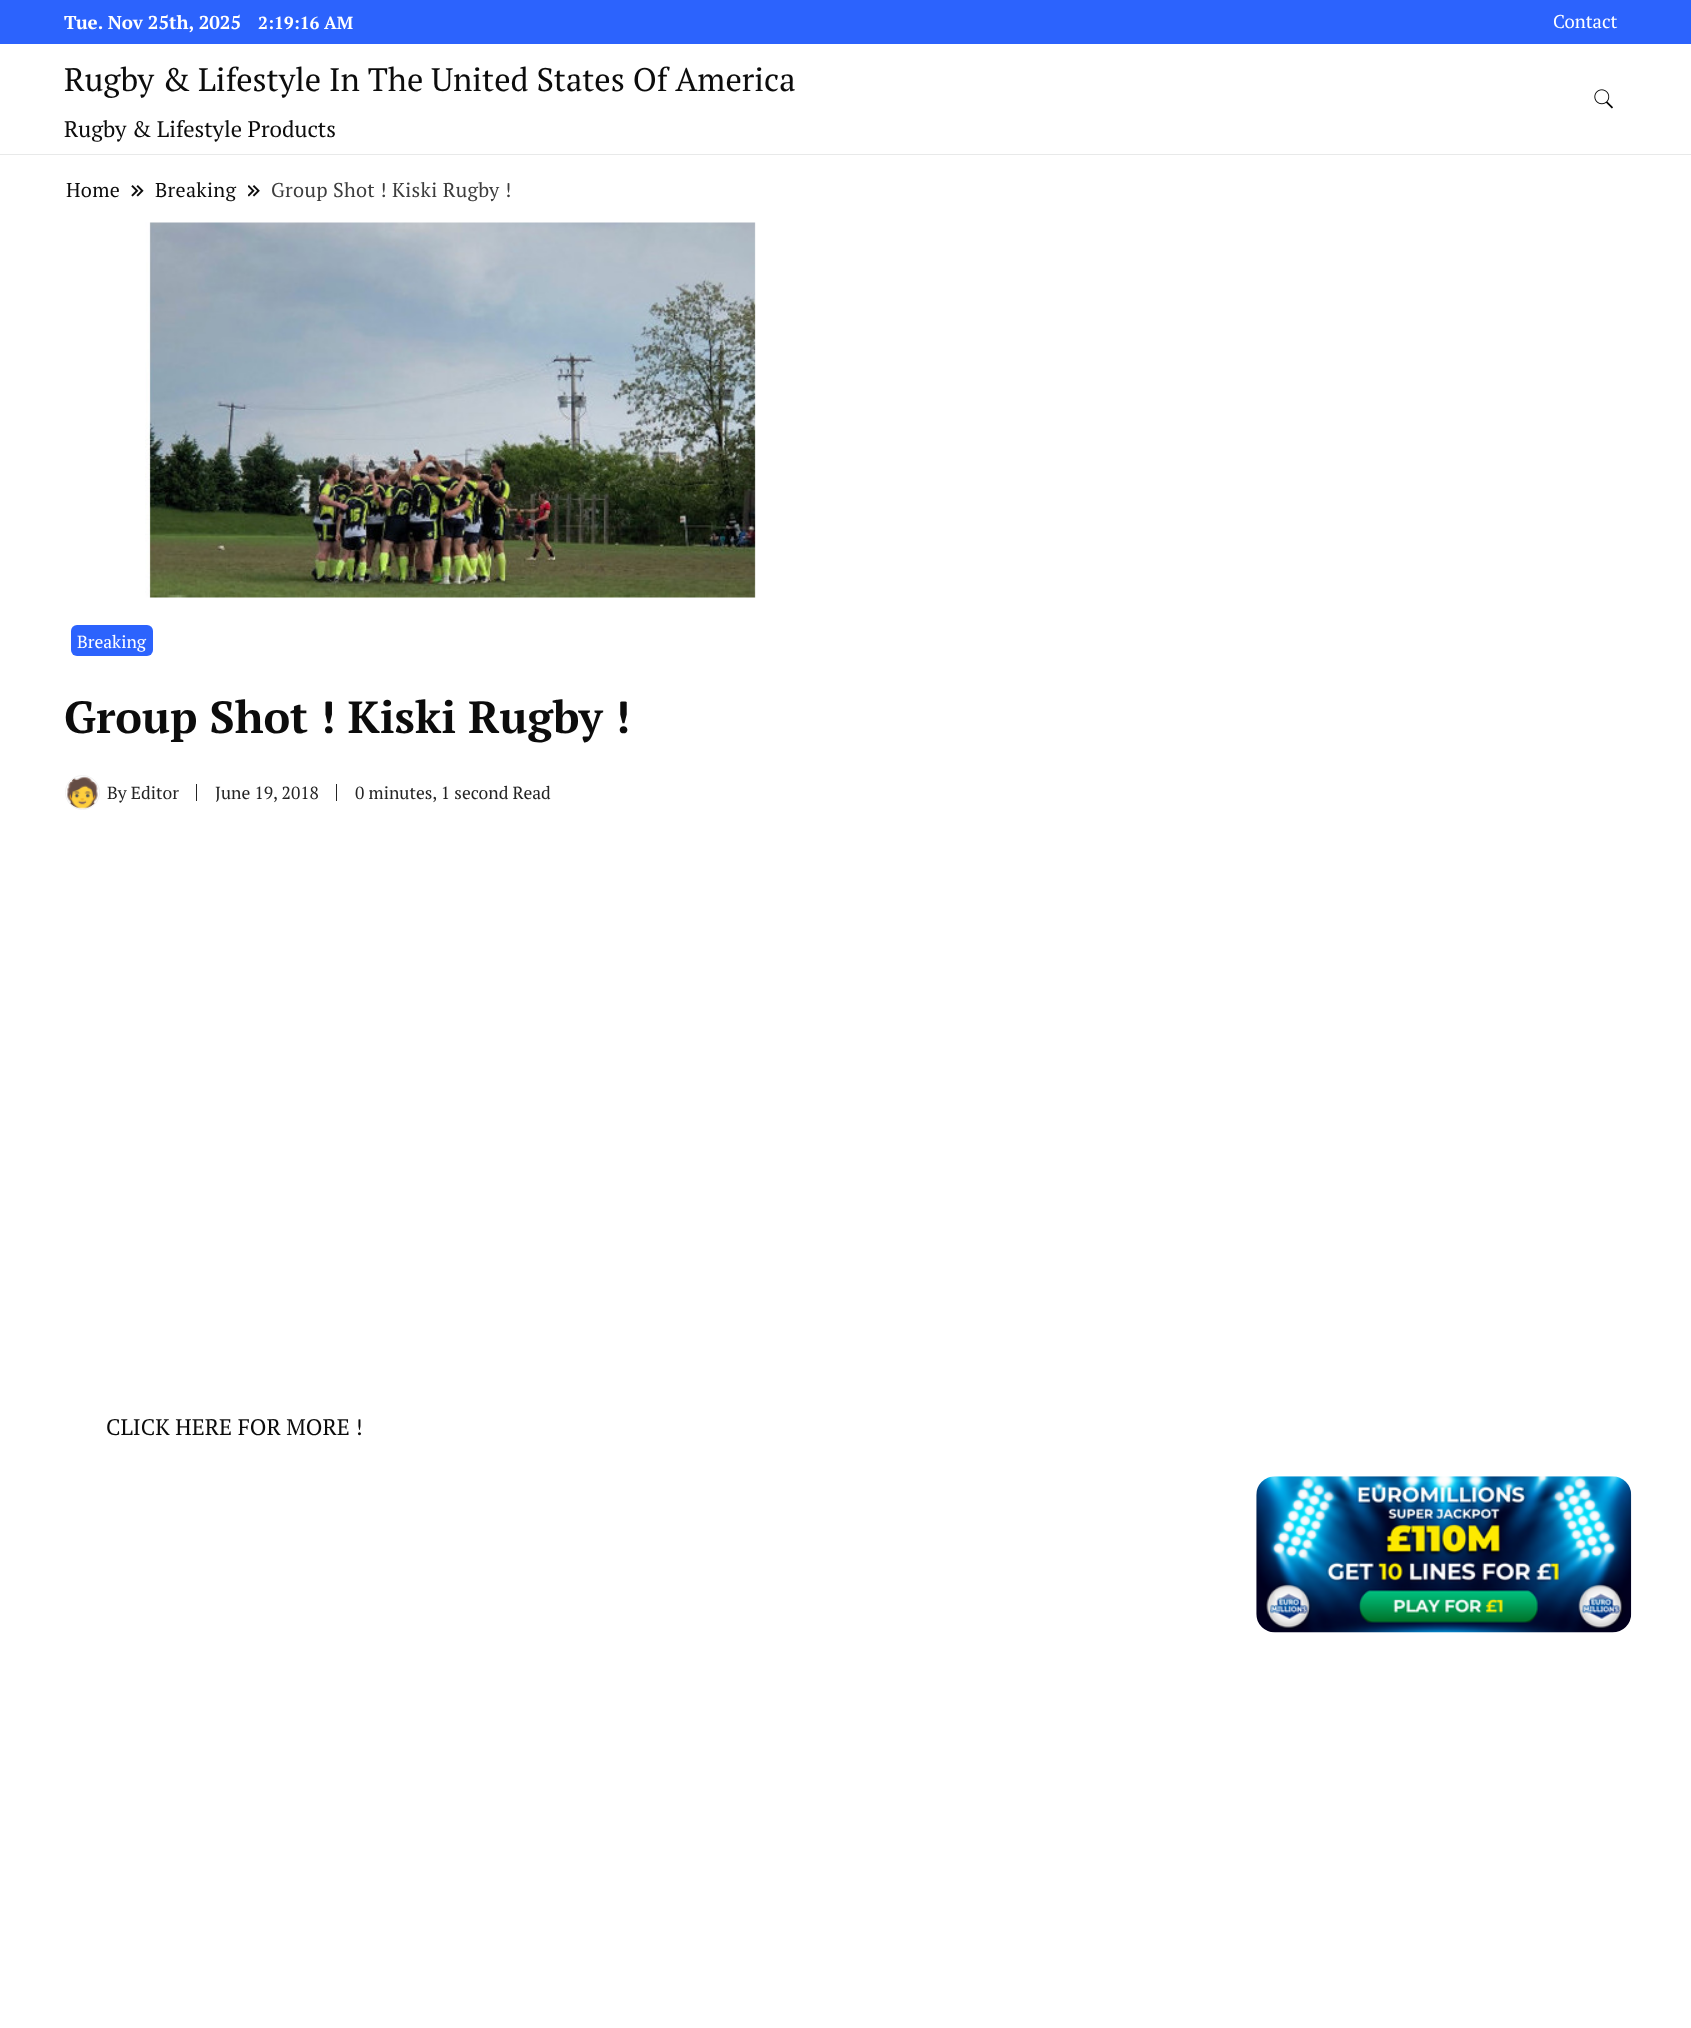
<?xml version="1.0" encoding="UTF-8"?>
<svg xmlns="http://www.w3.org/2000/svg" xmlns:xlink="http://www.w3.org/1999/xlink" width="1691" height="2028">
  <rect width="100%" height="100%" fill="#ffffff" />
  <rect y="154" width="1691" height="1" fill="#e8e9e9" />
  <rect width="1691" height="44" fill="#2c63fd" />
  <image x="1594" y="89" width="19" height="20" xlink:href="image1.png" />
  <image x="131" y="185" width="13" height="12" xlink:href="image2.png" />
  <image x="248" y="185" width="12" height="12" xlink:href="image3.png" />
  <image x="145" y="222" width="611" height="376" xlink:href="image4.png" />
  <rect x="71" y="625" width="82" height="31" rx="6" fill="#2c63fd" />
  <circle cx="82.5" cy="792.5" r="17" fill="none" stroke="#f2f2f2" />
  <image x="67" y="776" width="31" height="33" xlink:href="image5.png" />
  <rect x="196" y="784" width="1" height="17" fill="#242424" />
  <rect x="336" y="784" width="1" height="17" fill="#242424" />
  <image x="1256" y="1476" width="376" height="157" xlink:href="image6.png" />
  <text x="64" y="29" style="font-family: PT Serif; font-size: 18.75px; font-weight: bold; fill: #ffffff">Tue. Nov 25th, 2025</text>
  <text x="258" y="29" style="font-family: PT Serif; font-size: 17.5px; font-weight: bold; fill: #ffffff">2:19:16 AM</text>
  <text x="1553" y="28" style="font-family: PT Serif; font-size: 18.5px; fill: #ffffff">Contact</text>
  <text x="64" y="91" style="font-family: PT Serif; font-size: 32.5px; fill: #0c0c0c">Rugby &amp; Lifestyle In The United States Of America</text>
  <text x="64" y="137" style="font-family: PT Serif; font-size: 22.5px; fill: #0c0c0c">Rugby &amp; Lifestyle Products</text>
  <text x="66" y="197" style="font-family: PT Serif; font-size: 20px; letter-spacing: 0.3px; fill: #0c0c0c">Home</text>
  <text x="155" y="197" style="font-family: PT Serif; font-size: 20px; letter-spacing: 0.3px; fill: #0c0c0c">Breaking</text>
  <text x="271" y="197" style="font-family: PT Serif; font-size: 20px; letter-spacing: 0.3px; fill: #3d3d3d">Group Shot ! Kiski Rugby !</text>
  <text x="77" y="648" style="font-family: PT Serif; font-size: 17.5px; fill: #ffffff">Breaking</text>
  <text x="64" y="733" style="font-family: PT Serif; font-size: 45px; font-weight: bold; fill: #0c0c0c">Group Shot ! Kiski Rugby !</text>
  <text x="107" y="799" style="font-family: PT Serif; font-size: 17.5px; fill: #242424">By Editor</text>
  <text x="215" y="799" style="font-family: PT Serif; font-size: 17.5px; fill: #242424">June 19, 2018</text>
  <text x="355" y="799" style="font-family: PT Serif; font-size: 17.5px; fill: #242424">0 minutes, 1 second Read</text>
  <text x="106" y="1435" style="font-family: PT Serif; font-size: 22.5px; fill: #0c0c0c">CLICK HERE FOR MORE !</text>
</svg>
